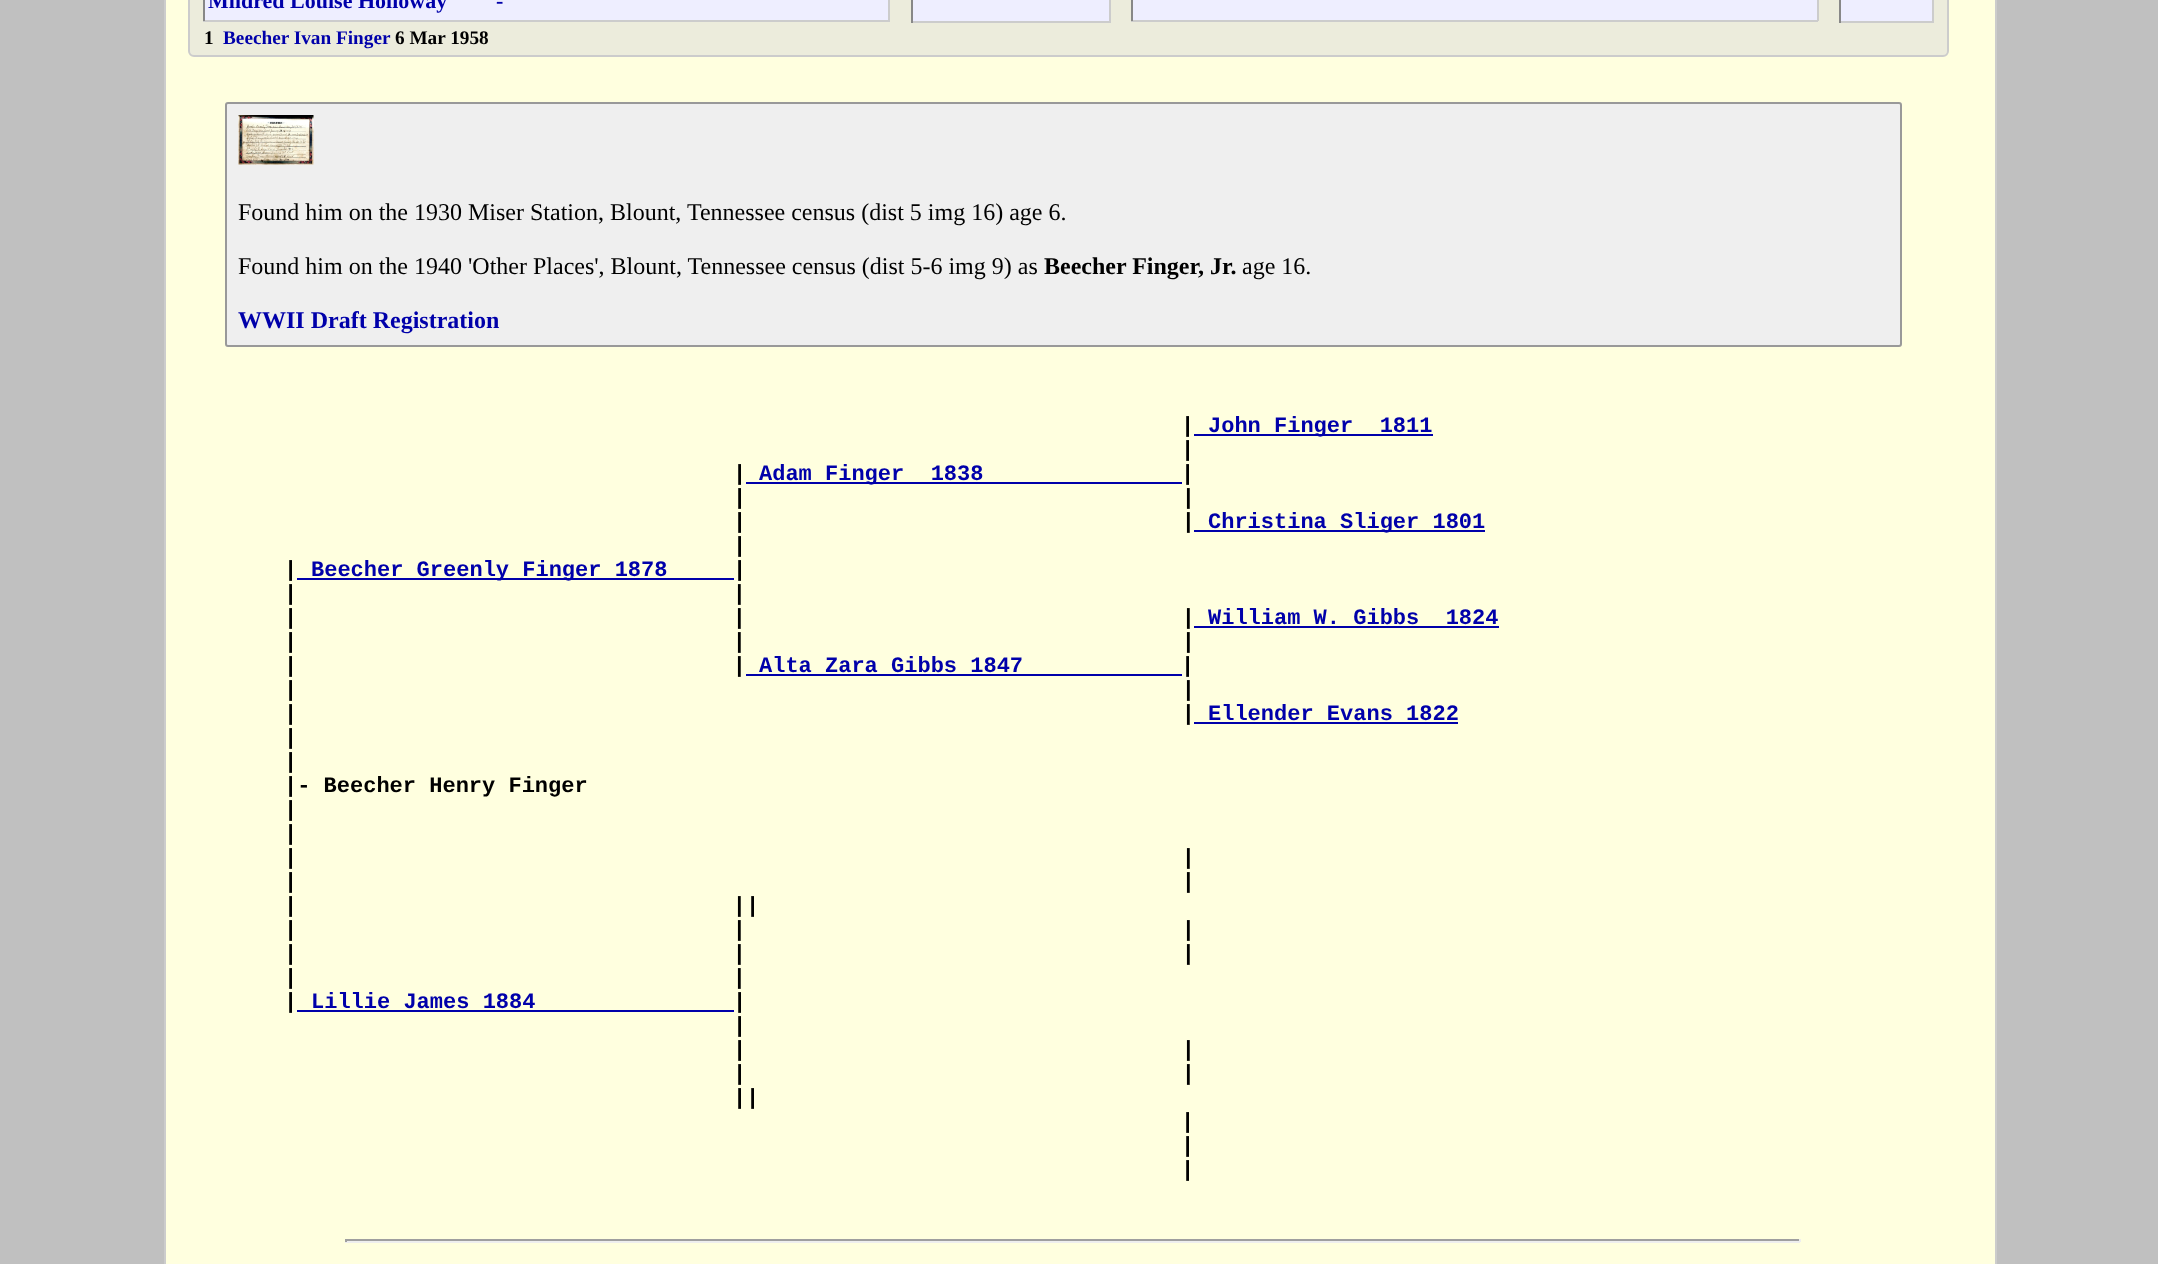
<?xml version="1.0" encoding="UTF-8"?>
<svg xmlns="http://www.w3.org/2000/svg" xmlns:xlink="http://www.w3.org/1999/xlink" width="2158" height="1264">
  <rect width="100%" height="100%" fill="#c0c0c0" />
  <rect x="165" y="-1" width="1831" height="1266" fill="#ffffdf" stroke="#cccccc" stroke-width="2" />
  <rect x="189" y="-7" width="1759" height="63" rx="5" fill="#ececdc" stroke="#cccccc" stroke-width="2" />
  <rect x="205" width="683" height="20" fill="#eeeeff" />
  <rect x="888" width="2" height="21" fill="#cccccc" />
  <rect x="203" y="20" width="687" height="2" fill="#cccccc" />
  <rect x="203" width="2" height="21" fill="#888888" />
  <rect x="913" width="196" height="21" fill="#eeeeff" />
  <rect x="1109" width="2" height="23" fill="#cccccc" />
  <rect x="911" y="21" width="199" height="2" fill="#cccccc" />
  <rect x="911" width="2" height="23" fill="#888888" />
  <rect x="1133" width="684" height="20" fill="#eeeeff" />
  <rect x="1817" width="2" height="21" fill="#cccccc" />
  <rect x="1131" y="20" width="687" height="2" fill="#cccccc" />
  <rect x="1131" width="2" height="21" fill="#888888" />
  <rect x="1841" width="91" height="21" fill="#eeeeff" />
  <rect x="1932" width="2" height="23" fill="#cccccc" />
  <rect x="1839" y="21" width="95" height="2" fill="#cccccc" />
  <rect x="1839" width="2" height="23" fill="#888888" />
  <rect x="226" y="103" width="1675" height="243" rx="2" fill="#efefef" stroke="#999999" stroke-width="2" />
  <image x="238" y="115" width="76" height="50" xlink:href="image1.png" />
  <rect x="1194" y="434" width="239" height="2" fill="#0000aa" />
  <rect x="746" y="482" width="436" height="2" fill="#0000aa" />
  <rect x="1194" y="530" width="291" height="2" fill="#0000aa" />
  <rect x="297" y="578" width="437" height="2" fill="#0000aa" />
  <rect x="1194" y="626" width="305" height="2" fill="#0000aa" />
  <rect x="746" y="674" width="436" height="2" fill="#0000aa" />
  <rect x="1194" y="722" width="264" height="2" fill="#0000aa" />
  <rect x="297" y="1010" width="437" height="2" fill="#0000aa" />
  <rect x="345" y="1239" width="1455" height="2" fill="#9f9f9f" />
  <rect x="1799" y="1239" width="2" height="3" fill="#eeeeee" />
  <rect x="345" y="1241" width="1455" height="2" fill="#eeeeee" />
  <rect x="345" y="1239" width="2" height="3" fill="#9f9f9f" />
  <text x="208" y="8" style="font-family: Liberation Serif; font-size: 22px; font-weight: bold; fill: #0000aa">Mildred Louise Holloway</text>
  <text x="496" y="8" style="font-family: Liberation Serif; font-size: 22px; font-weight: bold; fill: #0000aa">-</text>
  <text x="204" y="44" style="font-family: Liberation Serif; font-size: 19.25px; font-weight: bold; fill: #000000">1</text>
  <text x="223" y="44" style="font-family: Liberation Serif; font-size: 19.25px; font-weight: bold; fill: #0000aa">Beecher Ivan Finger</text>
  <text x="395" y="44" style="font-family: Liberation Serif; font-size: 19.25px; font-weight: bold; fill: #000000">6 Mar 1958</text>
  <text x="238" y="220" style="font-family: Liberation Serif; font-size: 24px; fill: #000000">Found him on the 1930 Miser Station, Blount, Tennessee census (dist 5 img 16) age 6.</text>
  <text x="238" y="274" style="font-family: Liberation Serif; font-size: 24px; fill: #000000">Found him on the 1940 'Other Places', Blount, Tennessee census (dist 5-6 img 9) as</text>
  <text x="1044" y="274" style="font-family: Liberation Serif; font-size: 24px; font-weight: bold; fill: #000000">Beecher Finger, Jr.</text>
  <text x="1242" y="274" style="font-family: Liberation Serif; font-size: 24px; fill: #000000">age 16.</text>
  <text x="238" y="328" style="font-family: Liberation Serif; font-size: 24px; font-weight: bold; fill: #0000aa">WWII Draft Registration</text>
  <text x="1181" y="432" style="font-family: Liberation Mono; font-size: 22px; font-weight: bold; fill: #000000">|</text>
  <text x="1208" y="432" style="font-family: Liberation Mono; font-size: 22px; font-weight: bold; fill: #0000aa" xml:space="preserve">John Finger  1811</text>
  <text x="1181" y="456" style="font-family: Liberation Mono; font-size: 22px; font-weight: bold; fill: #000000">|</text>
  <text x="733" y="480" style="font-family: Liberation Mono; font-size: 22px; font-weight: bold; fill: #000000">|</text>
  <text x="759" y="480" style="font-family: Liberation Mono; font-size: 22px; font-weight: bold; fill: #0000aa" xml:space="preserve">Adam Finger  1838</text>
  <text x="1181" y="480" style="font-family: Liberation Mono; font-size: 22px; font-weight: bold; fill: #000000">|</text>
  <text x="733" y="504" style="font-family: Liberation Mono; font-size: 22px; font-weight: bold; fill: #000000" xml:space="preserve">|                                 |</text>
  <text x="733" y="528" style="font-family: Liberation Mono; font-size: 22px; font-weight: bold; fill: #000000" xml:space="preserve">|                                 |</text>
  <text x="1208" y="528" style="font-family: Liberation Mono; font-size: 22px; font-weight: bold; fill: #0000aa">Christina Sliger 1801</text>
  <text x="733" y="552" style="font-family: Liberation Mono; font-size: 22px; font-weight: bold; fill: #000000">|</text>
  <text x="284" y="576" style="font-family: Liberation Mono; font-size: 22px; font-weight: bold; fill: #000000">|</text>
  <text x="311" y="576" style="font-family: Liberation Mono; font-size: 22px; font-weight: bold; fill: #0000aa">Beecher Greenly Finger 1878</text>
  <text x="733" y="576" style="font-family: Liberation Mono; font-size: 22px; font-weight: bold; fill: #000000">|</text>
  <text x="284" y="600" style="font-family: Liberation Mono; font-size: 22px; font-weight: bold; fill: #000000" xml:space="preserve">|                                 |</text>
  <text x="284" y="624" style="font-family: Liberation Mono; font-size: 22px; font-weight: bold; fill: #000000" xml:space="preserve">|                                 |                                 |</text>
  <text x="1208" y="624" style="font-family: Liberation Mono; font-size: 22px; font-weight: bold; fill: #0000aa" xml:space="preserve">William W. Gibbs  1824</text>
  <text x="284" y="648" style="font-family: Liberation Mono; font-size: 22px; font-weight: bold; fill: #000000" xml:space="preserve">|                                 |                                 |</text>
  <text x="284" y="672" style="font-family: Liberation Mono; font-size: 22px; font-weight: bold; fill: #000000" xml:space="preserve">|                                 |</text>
  <text x="759" y="672" style="font-family: Liberation Mono; font-size: 22px; font-weight: bold; fill: #0000aa">Alta Zara Gibbs 1847</text>
  <text x="1181" y="672" style="font-family: Liberation Mono; font-size: 22px; font-weight: bold; fill: #000000">|</text>
  <text x="284" y="696" style="font-family: Liberation Mono; font-size: 22px; font-weight: bold; fill: #000000" xml:space="preserve">|                                                                   |</text>
  <text x="284" y="720" style="font-family: Liberation Mono; font-size: 22px; font-weight: bold; fill: #000000" xml:space="preserve">|                                                                   |</text>
  <text x="1208" y="720" style="font-family: Liberation Mono; font-size: 22px; font-weight: bold; fill: #0000aa">Ellender Evans 1822</text>
  <text x="284" y="744" style="font-family: Liberation Mono; font-size: 22px; font-weight: bold; fill: #000000">|</text>
  <text x="284" y="768" style="font-family: Liberation Mono; font-size: 22px; font-weight: bold; fill: #000000">|</text>
  <text x="284" y="792" style="font-family: Liberation Mono; font-size: 22px; font-weight: bold; fill: #000000">|- Beecher Henry Finger</text>
  <text x="284" y="816" style="font-family: Liberation Mono; font-size: 22px; font-weight: bold; fill: #000000">|</text>
  <text x="284" y="840" style="font-family: Liberation Mono; font-size: 22px; font-weight: bold; fill: #000000">|</text>
  <text x="284" y="864" style="font-family: Liberation Mono; font-size: 22px; font-weight: bold; fill: #000000" xml:space="preserve">|                                                                   |</text>
  <text x="284" y="888" style="font-family: Liberation Mono; font-size: 22px; font-weight: bold; fill: #000000" xml:space="preserve">|                                                                   |</text>
  <text x="284" y="912" style="font-family: Liberation Mono; font-size: 22px; font-weight: bold; fill: #000000" xml:space="preserve">|                                 |</text>
  <text x="746" y="912" style="font-family: Liberation Mono; font-size: 22px; font-weight: bold; fill: #000000">|</text>
  <text x="284" y="936" style="font-family: Liberation Mono; font-size: 22px; font-weight: bold; fill: #000000" xml:space="preserve">|                                 |                                 |</text>
  <text x="284" y="960" style="font-family: Liberation Mono; font-size: 22px; font-weight: bold; fill: #000000" xml:space="preserve">|                                 |                                 |</text>
  <text x="284" y="984" style="font-family: Liberation Mono; font-size: 22px; font-weight: bold; fill: #000000" xml:space="preserve">|                                 |</text>
  <text x="284" y="1008" style="font-family: Liberation Mono; font-size: 22px; font-weight: bold; fill: #000000">|</text>
  <text x="311" y="1008" style="font-family: Liberation Mono; font-size: 22px; font-weight: bold; fill: #0000aa">Lillie James 1884</text>
  <text x="733" y="1008" style="font-family: Liberation Mono; font-size: 22px; font-weight: bold; fill: #000000">|</text>
  <text x="733" y="1032" style="font-family: Liberation Mono; font-size: 22px; font-weight: bold; fill: #000000">|</text>
  <text x="733" y="1056" style="font-family: Liberation Mono; font-size: 22px; font-weight: bold; fill: #000000" xml:space="preserve">|                                 |</text>
  <text x="733" y="1080" style="font-family: Liberation Mono; font-size: 22px; font-weight: bold; fill: #000000" xml:space="preserve">|                                 |</text>
  <text x="733" y="1104" style="font-family: Liberation Mono; font-size: 22px; font-weight: bold; fill: #000000">|</text>
  <text x="746" y="1104" style="font-family: Liberation Mono; font-size: 22px; font-weight: bold; fill: #000000">|</text>
  <text x="1181" y="1128" style="font-family: Liberation Mono; font-size: 22px; font-weight: bold; fill: #000000">|</text>
  <text x="1181" y="1152" style="font-family: Liberation Mono; font-size: 22px; font-weight: bold; fill: #000000">|</text>
  <text x="1181" y="1176" style="font-family: Liberation Mono; font-size: 22px; font-weight: bold; fill: #000000">|</text>
</svg>
